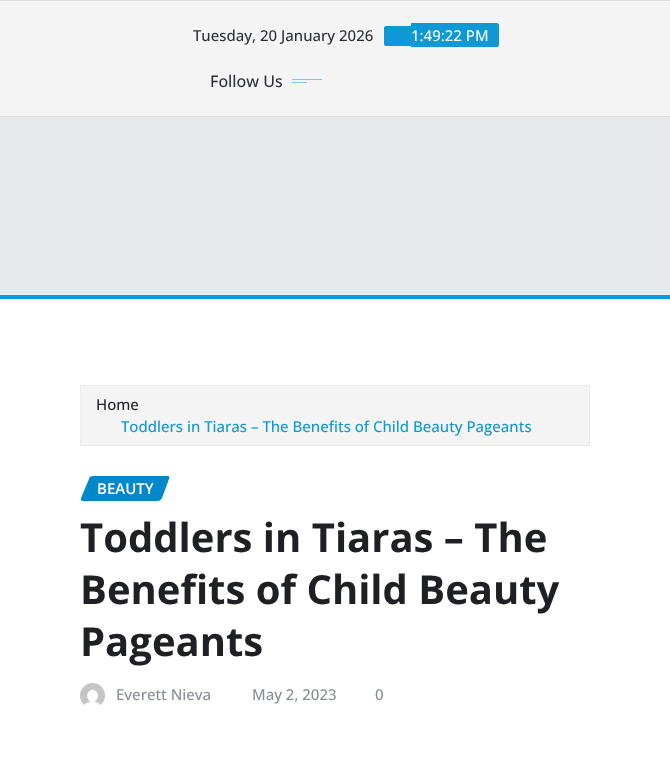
<?xml version="1.0" encoding="UTF-8"?>
<svg xmlns="http://www.w3.org/2000/svg" xmlns:xlink="http://www.w3.org/1999/xlink" width="670" height="761">
  <rect width="100%" height="100%" fill="#ffffff" />
  <rect y="1" width="670" height="115" fill="#f4f4f5" />
  <rect width="670" height="1" fill="#dcdcdd" />
  <rect y="116" width="670" height="1" fill="#dcdcdd" />
  <path d="M 386 26 h 25 v 20 h -25 c -1 0 -2 -1 -2 -2 v -16 c 0 -1 1 -2 2 -2 z" fill="#0e98d6" />
  <path d="M 411 23 h 86 c 1 0 2 1 2 2 v 20 c 0 1 -1 2 -2 2 h -86 z" fill="#0e98d6" />
  <rect x="292" y="79" width="30" height="1" fill="#81c6e6" />
  <rect x="292" y="82" width="15" height="1" fill="#81c6e6" />
  <rect y="117" width="670" height="178" fill="#e8e9ea" />
  <rect y="295" width="670" height="4" fill="#0e98d6" />
  <rect x="80.5" y="385.5" width="509" height="60" fill="#f4f4f5" stroke="#ebebeb" />
  <path d="M 93 476 h 75 c 1 0 2 1 1 3 l -7 19 c -1 2 -3 3 -4 3 h -75 c -2 0 -2 -1 -2 -3 l 8 -19 c 0 -2 2 -3 4 -3 z" fill="#0088cb" />
  <image x="80" y="683" width="25" height="22" xlink:href="image1.png" />
  <text x="193" y="41" style="font-family: Open Sans; font-size: 15px; font-weight: 500; fill: #2c2f34">Tuesday, 20 January 2026</text>
  <text x="411" y="41" style="font-family: Open Sans; font-size: 15px; font-weight: 500; fill: #ffffff">1:49:22 PM</text>
  <text x="210" y="87" style="font-family: Open Sans; font-size: 16px; font-weight: 500; fill: #2c2f34">Follow Us</text>
  <text x="96" y="410" style="font-family: Open Sans; font-size: 15px; font-weight: 500; fill: #1f2024">Home</text>
  <text x="121" y="432" style="font-family: Open Sans; font-size: 15px; font-weight: 500; fill: #0e98d6">Toddlers in Tiaras – The Benefits of Child Beauty Pageants</text>
  <text x="97" y="494" style="font-family: Open Sans; font-size: 15px; font-weight: 600; fill: #ffffff">BEAUTY</text>
  <text x="80" y="552" style="font-family: Open Sans; font-size: 40px; font-weight: bold; fill: #1f2024">Toddlers in Tiaras – The</text>
  <text x="80" y="604" style="font-family: Open Sans; font-size: 40px; font-weight: bold; fill: #1f2024">Benefits of Child Beauty</text>
  <text x="80" y="656" style="font-family: Open Sans; font-size: 40px; font-weight: bold; fill: #1f2024">Pageants</text>
  <text x="116" y="700" style="font-family: Open Sans; font-size: 15px; font-weight: 500; fill: #878e94">Everett Nieva</text>
  <text x="252" y="700" style="font-family: Open Sans; font-size: 15px; font-weight: 500; fill: #878e94">May 2, 2023</text>
  <text x="375" y="700" style="font-family: Open Sans; font-size: 15px; font-weight: 500; fill: #878e94">0</text>
</svg>
